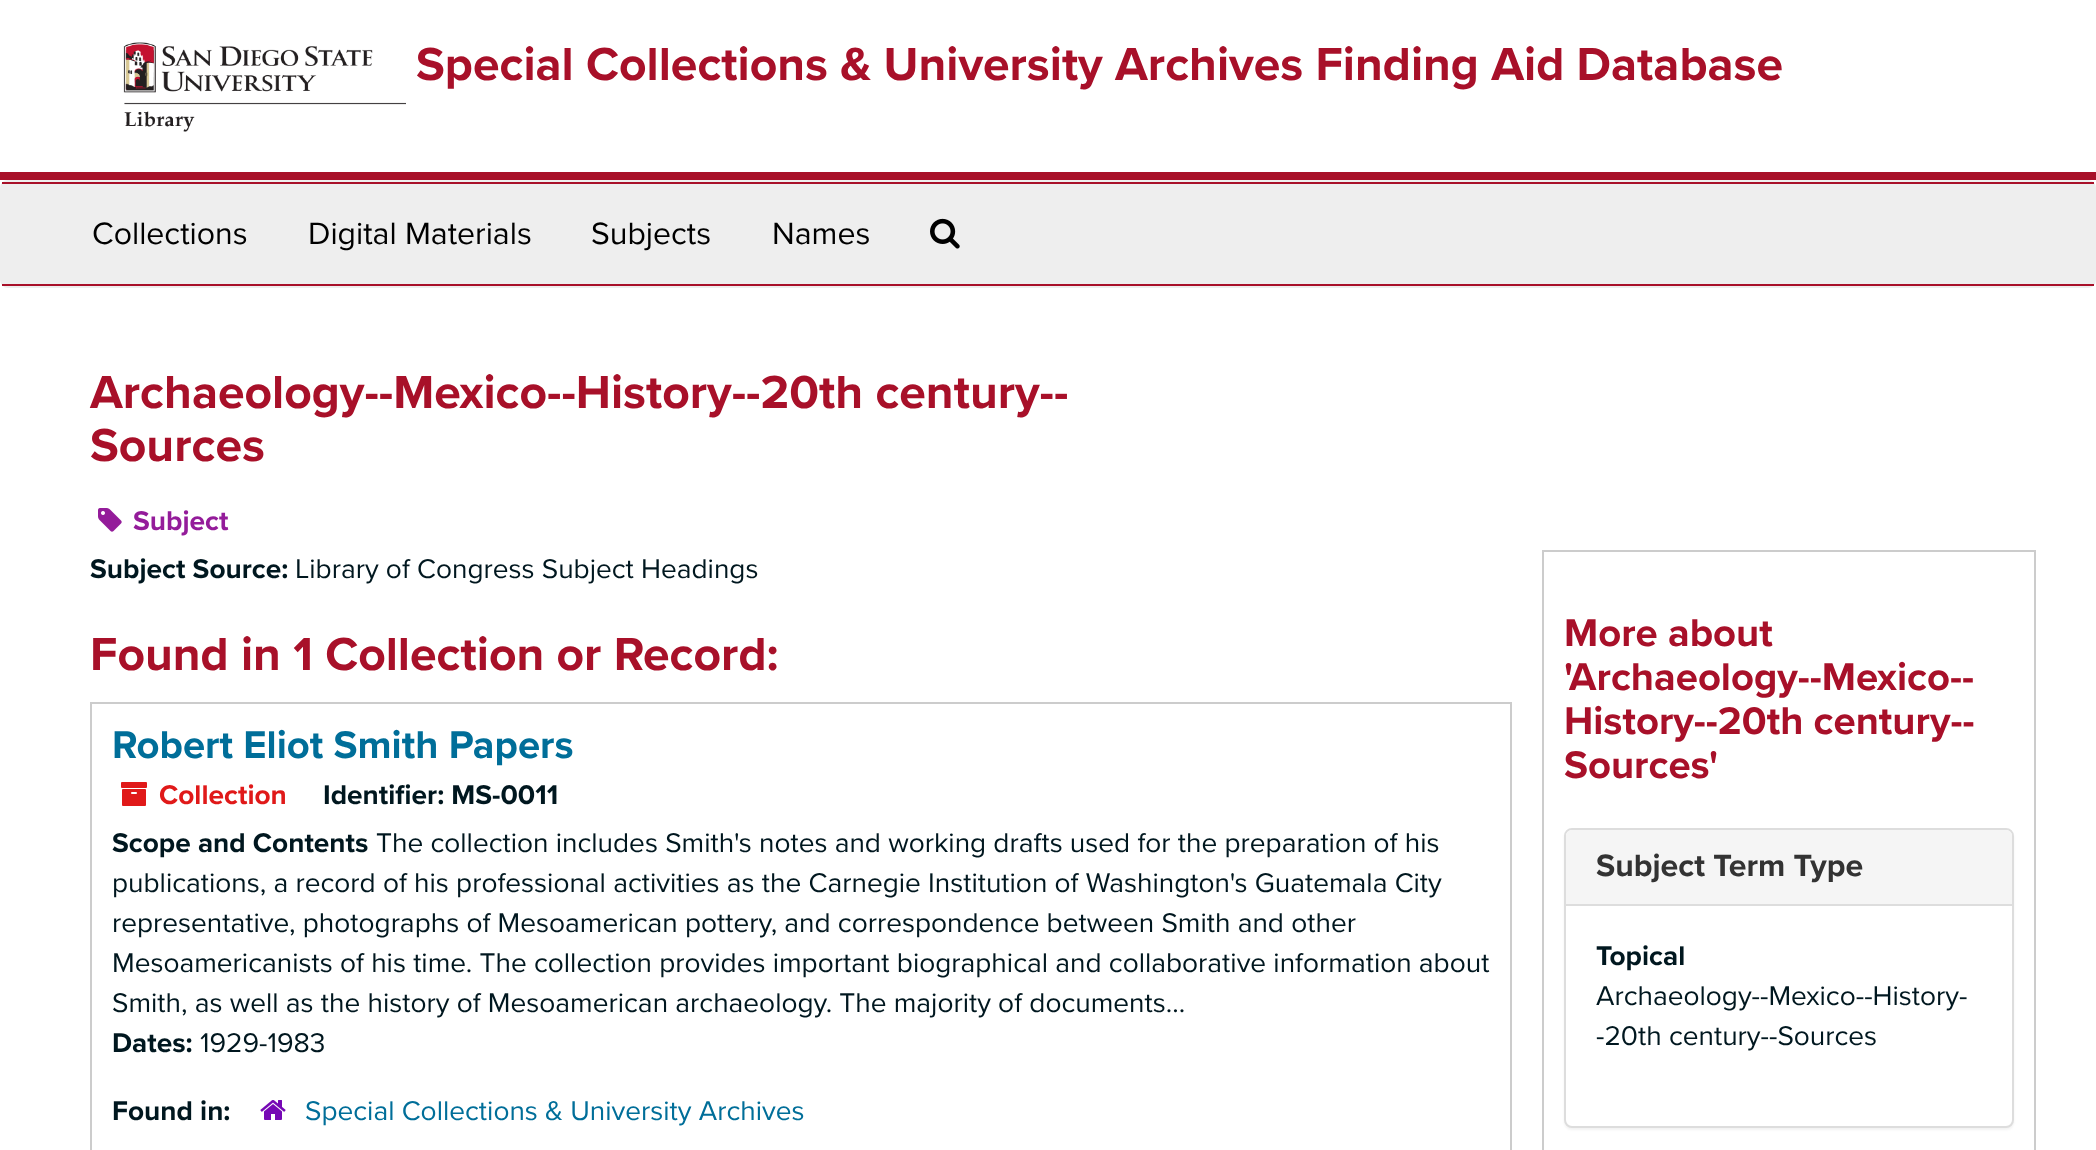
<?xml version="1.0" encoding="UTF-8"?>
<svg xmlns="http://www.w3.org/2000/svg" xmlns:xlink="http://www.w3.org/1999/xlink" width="2096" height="1150">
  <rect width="100%" height="100%" fill="#ffffff" />
  <rect y="172" width="2096" height="8" fill="#a81029" />
  <image x="123" y="42" width="283" height="90" xlink:href="image1.png" />
  <rect x="1" y="181" width="2094" height="106" rx="7" fill="#eeeeee" stroke="#eeeeee" stroke-width="2" />
  <rect x="2" y="182" width="2092" height="2" fill="#a81029" />
  <rect x="2" y="284" width="2092" height="2" fill="#a81029" />
  <image x="930" y="218" width="30" height="31" xlink:href="image2.png" />
  <image x="98" y="508" width="24" height="24" xlink:href="image3.png" />
  <rect x="91" y="703" width="1420" height="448" fill="none" stroke="#cccccc" stroke-width="2" />
  <image x="121" y="782" width="26" height="24" xlink:href="image4.png" />
  <image x="260" y="1100" width="26" height="20" xlink:href="image5.png" />
  <rect x="1543" y="551" width="492" height="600" fill="none" stroke="#cccccc" stroke-width="2" />
  <rect x="1564" y="830" width="450" height="300" rx="8" fill="#000000" fill-opacity="0.05" filter="blur(1px)" />
  <rect x="1565" y="829" width="448" height="298" rx="7" fill="#ffffff" stroke="#dddddd" stroke-width="2" />
  <path d="M 1572 830 h 434 c 3.5 0 6 2.5 6 6 v 68 h -446 v -68 c 0 -3.5 2.5 -6 6 -6 z" fill="#f5f5f5" />
  <rect x="1566" y="904" width="446" height="2" fill="#dddddd" />
  <text x="416" y="80" style="font-family: Proxima Nova; font-size: 48px; font-weight: bold; fill: #a81029">Special Collections &amp; University Archives Finding Aid Database</text>
  <text x="92" y="244" style="font-family: Proxima Nova; font-size: 32px; fill: #000000">Collections</text>
  <text x="308" y="244" style="font-family: Proxima Nova; font-size: 32px; fill: #000000">Digital Materials</text>
  <text x="591" y="244" style="font-family: Proxima Nova; font-size: 32px; fill: #000000">Subjects</text>
  <text x="772" y="244" style="font-family: Proxima Nova; font-size: 32px; fill: #000000">Names</text>
  <text x="90" y="408" style="font-family: Proxima Nova; font-size: 48px; font-weight: bold; fill: #a81029">Archaeology--Mexico--History--20th century--</text>
  <text x="90" y="461" style="font-family: Proxima Nova; font-size: 48px; font-weight: bold; fill: #a81029">Sources</text>
  <text x="133" y="530" style="font-family: Proxima Nova; font-size: 28px; font-weight: bold; fill: #941c9a">Subject</text>
  <text x="90" y="578" style="font-family: Proxima Nova; font-size: 28px; font-weight: bold; fill: #00171f">Subject Source:</text>
  <text x="295" y="578" style="font-family: Proxima Nova; font-size: 28px; fill: #00171f">Library of Congress Subject Headings</text>
  <text x="90" y="670" style="font-family: Proxima Nova; font-size: 48px; font-weight: bold; fill: #a81029">Found in 1 Collection or Record:</text>
  <text x="112" y="758" style="font-family: Proxima Nova; font-size: 40px; font-weight: bold; fill: #006e99">Robert Eliot Smith Papers</text>
  <text x="159" y="804" style="font-family: Proxima Nova; font-size: 28px; font-weight: bold; fill: #e01919">Collection</text>
  <text x="323" y="804" style="font-family: Proxima Nova; font-size: 28px; font-weight: bold; fill: #00171f">Identifier: MS-0011</text>
  <text x="112" y="852" style="font-family: Proxima Nova; font-size: 28px; font-weight: bold; fill: #00171f">Scope and Contents</text>
  <text x="376" y="852" style="font-family: Proxima Nova; font-size: 28px; fill: #00171f">The collection includes Smith's notes and working drafts used for the preparation of his</text>
  <text x="112" y="892" style="font-family: Proxima Nova; font-size: 28px; fill: #00171f">publications, a record of his professional activities as the Carnegie Institution of Washington's Guatemala City</text>
  <text x="112" y="932" style="font-family: Proxima Nova; font-size: 28px; fill: #00171f">representative, photographs of Mesoamerican pottery, and correspondence between Smith and other</text>
  <text x="112" y="972" style="font-family: Proxima Nova; font-size: 28px; fill: #00171f">Mesoamericanists of his time. The collection provides important biographical and collaborative information about</text>
  <text x="112" y="1012" style="font-family: Proxima Nova; font-size: 28px; fill: #00171f">Smith, as well as the history of Mesoamerican archaeology. The majority of documents...</text>
  <text x="112" y="1052" style="font-family: Proxima Nova; font-size: 28px; font-weight: bold; fill: #00171f">Dates:</text>
  <text x="200" y="1052" style="font-family: Proxima Nova; font-size: 28px; fill: #00171f">1929-1983</text>
  <text x="112" y="1120" style="font-family: Proxima Nova; font-size: 28px; font-weight: bold; fill: #00171f">Found in:</text>
  <text x="305" y="1120" style="font-family: Proxima Nova; font-size: 28px; fill: #006e99">Special Collections &amp; University Archives</text>
  <text x="1564" y="646" style="font-family: Proxima Nova; font-size: 40px; font-weight: bold; fill: #a81029">More about</text>
  <text x="1564" y="690" style="font-family: Proxima Nova; font-size: 40px; font-weight: bold; fill: #a81029">'Archaeology--Mexico--</text>
  <text x="1564" y="734" style="font-family: Proxima Nova; font-size: 40px; font-weight: bold; fill: #a81029">History--20th century--</text>
  <text x="1564" y="778" style="font-family: Proxima Nova; font-size: 40px; font-weight: bold; fill: #a81029">Sources'</text>
  <text x="1596" y="876" style="font-family: Proxima Nova; font-size: 32px; font-weight: bold; fill: #333333">Subject Term Type</text>
  <text x="1596" y="965" style="font-family: Proxima Nova; font-size: 28px; font-weight: bold; fill: #00171f">Topical</text>
  <text x="1596" y="1005" style="font-family: Proxima Nova; font-size: 28px; fill: #00171f">Archaeology--Mexico--History-</text>
  <text x="1596" y="1045" style="font-family: Proxima Nova; font-size: 28px; fill: #00171f">-20th century--Sources</text>
</svg>
